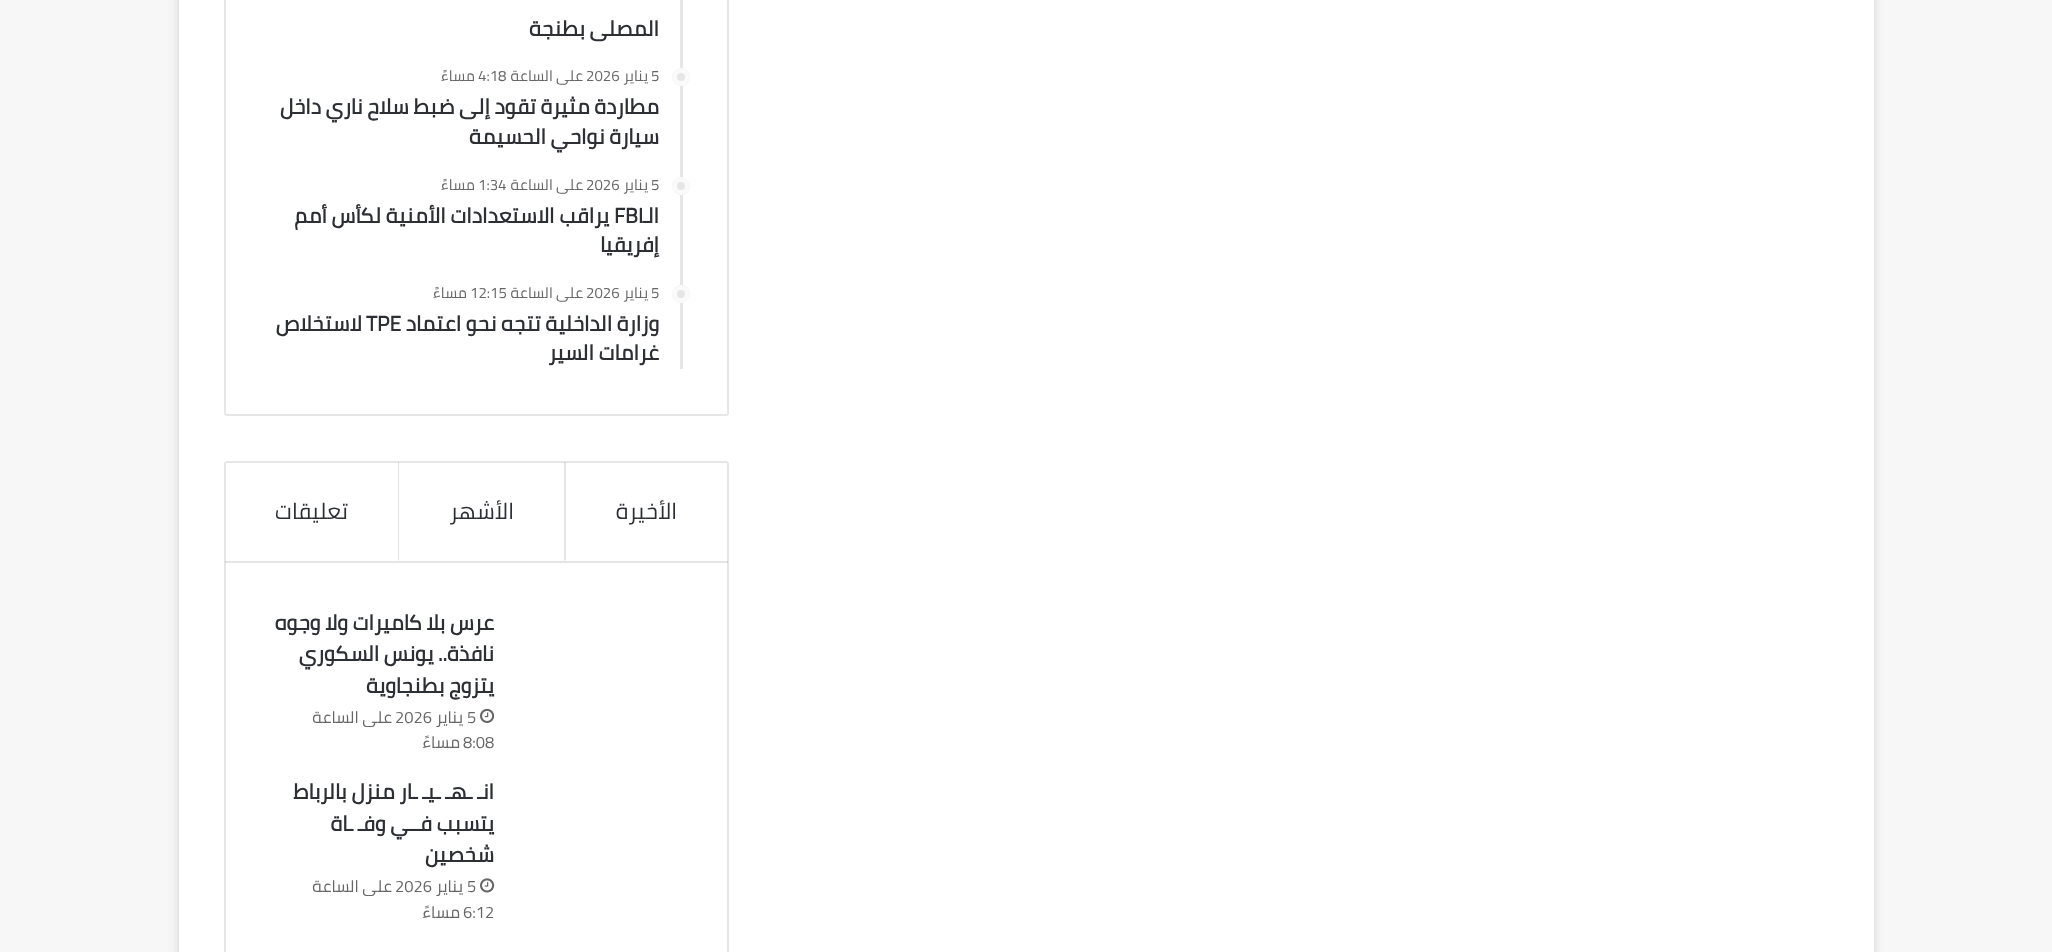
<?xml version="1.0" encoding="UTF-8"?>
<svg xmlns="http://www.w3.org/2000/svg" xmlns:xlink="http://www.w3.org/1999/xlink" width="2052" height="952">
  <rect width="100%" height="100%" fill="#f7f7f7" />
  <rect x="179" y="-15" width="1695" height="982" fill="#ababab" fill-opacity="0.5" filter="blur(5px)" />
  <rect x="179" width="1695" height="952" fill="#ffffff" />
  <rect x="225" y="-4" width="503" height="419" rx="2" fill="none" stroke="#e6e6e6" stroke-width="2" />
  <rect x="680" width="3" height="369" fill="#e6e6e6" />
  <circle cx="681" cy="77" r="9" fill="#e6e6e6" />
  <circle cx="681" cy="77" r="6.5" fill="none" stroke="#ffffff" stroke-opacity="0.8" stroke-width="5" />
  <circle cx="681" cy="186" r="9" fill="#e6e6e6" />
  <circle cx="681" cy="186" r="6.5" fill="none" stroke="#ffffff" stroke-opacity="0.8" stroke-width="5" />
  <circle cx="681" cy="294" r="9" fill="#e6e6e6" />
  <circle cx="681" cy="294" r="6.5" fill="none" stroke="#ffffff" stroke-opacity="0.8" stroke-width="5" />
  <rect x="225" y="462" width="503" height="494" rx="2" fill="none" stroke="#e6e6e6" stroke-width="2" />
  <rect x="225" y="561" width="503" height="2" fill="#000000" fill-opacity="0.1" />
  <path d="M 564 561 v -99 h 2 v 98 z" fill="#000000" fill-opacity="0.1" />
  <path d="M 398 561 v -99 h 1 v 98 z" fill="#000000" fill-opacity="0.1" />
  <image x="480" y="708" width="15" height="15" xlink:href="image1.png" />
  <image x="480" y="878" width="15" height="15" xlink:href="image2.png" />
  <text x="659" y="36" style="font-family: Cairo; font-size: 21px; font-weight: bold; direction: rtl; fill: #2c2f34">المصلى بطنجة</text>
  <text x="651" y="81" style="font-family: Cairo; font-size: 15px; fill: #666666">5</text>
  <text x="648" y="81" style="font-family: Cairo; font-size: 15px; direction: rtl; fill: #666666">يناير</text>
  <text x="586" y="81" style="font-family: Cairo; font-size: 15px; fill: #666666">2026</text>
  <text x="583" y="81" style="font-family: Cairo; font-size: 15px; direction: rtl; fill: #666666">على الساعة</text>
  <text x="478" y="81" style="font-family: Cairo; font-size: 15px; fill: #666666">4:18</text>
  <text x="475" y="81" style="font-family: Cairo; font-size: 15px; direction: rtl; fill: #666666">مساءً</text>
  <text x="659" y="114" style="font-family: Cairo; font-size: 21px; font-weight: bold; direction: rtl; fill: #2c2f34">مطاردة مثيرة تقود إلى ضبط سلاح ناري داخل</text>
  <text x="659" y="144" style="font-family: Cairo; font-size: 21px; font-weight: bold; direction: rtl; fill: #2c2f34">سيارة نواحي الحسيمة</text>
  <text x="651" y="190" style="font-family: Cairo; font-size: 15px; fill: #666666">5</text>
  <text x="648" y="190" style="font-family: Cairo; font-size: 15px; direction: rtl; fill: #666666">يناير</text>
  <text x="586" y="190" style="font-family: Cairo; font-size: 15px; fill: #666666">2026</text>
  <text x="583" y="190" style="font-family: Cairo; font-size: 15px; direction: rtl; fill: #666666">على الساعة</text>
  <text x="478" y="190" style="font-family: Cairo; font-size: 15px; fill: #666666">1:34</text>
  <text x="475" y="190" style="font-family: Cairo; font-size: 15px; direction: rtl; fill: #666666">مساءً</text>
  <text x="659" y="223" style="font-family: Cairo; font-size: 21px; font-weight: bold; direction: rtl; fill: #2c2f34">الـ</text>
  <text x="614" y="223" style="font-family: Cairo; font-size: 21px; font-weight: bold; fill: #2c2f34">FBI</text>
  <text x="609" y="223" style="font-family: Cairo; font-size: 21px; font-weight: bold; direction: rtl; fill: #2c2f34">يراقب الاستعدادات الأمنية لكأس أمم</text>
  <text x="659" y="252" style="font-family: Cairo; font-size: 21px; font-weight: bold; direction: rtl; fill: #2c2f34">إفريقيا</text>
  <text x="651" y="298" style="font-family: Cairo; font-size: 15px; fill: #666666">5</text>
  <text x="648" y="298" style="font-family: Cairo; font-size: 15px; direction: rtl; fill: #666666">يناير</text>
  <text x="586" y="298" style="font-family: Cairo; font-size: 15px; fill: #666666">2026</text>
  <text x="583" y="298" style="font-family: Cairo; font-size: 15px; direction: rtl; fill: #666666">على الساعة</text>
  <text x="470" y="298" style="font-family: Cairo; font-size: 15px; fill: #666666">12:15</text>
  <text x="467" y="298" style="font-family: Cairo; font-size: 15px; direction: rtl; fill: #666666">مساءً</text>
  <text x="659" y="331" style="font-family: Cairo; font-size: 21px; font-weight: bold; direction: rtl; fill: #2c2f34">وزارة الداخلية تتجه نحو اعتماد</text>
  <text x="366" y="331" style="font-family: Cairo; font-size: 21px; font-weight: bold; fill: #2c2f34">TPE</text>
  <text x="362" y="331" style="font-family: Cairo; font-size: 21px; font-weight: bold; direction: rtl; fill: #2c2f34">لاستخلاص</text>
  <text x="659" y="360" style="font-family: Cairo; font-size: 21px; font-weight: bold; direction: rtl; fill: #2c2f34">غرامات السير</text>
  <text x="677" y="519" style="font-family: Cairo; font-size: 22.5px; direction: rtl; fill: #2c2f34">الأخيرة</text>
  <text x="514" y="519" style="font-family: Cairo; font-size: 22.5px; direction: rtl; fill: #2c2f34">الأشهر</text>
  <text x="348" y="519" style="font-family: Cairo; font-size: 22.5px; direction: rtl; fill: #2c2f34">تعليقات</text>
  <text x="494" y="630" style="font-family: Cairo; font-size: 21px; font-weight: bold; direction: rtl; fill: #2c2f34">عرس بلا كاميرات ولا وجوه</text>
  <text x="494" y="661" style="font-family: Cairo; font-size: 21px; font-weight: bold; direction: rtl; fill: #2c2f34">نافذة.. يونس السكوري</text>
  <text x="494" y="693" style="font-family: Cairo; font-size: 21px; font-weight: bold; direction: rtl; fill: #2c2f34">يتزوج بطنجاوية</text>
  <text x="467" y="723" style="font-family: Cairo; font-size: 16.5px; fill: #666666">5</text>
  <text x="463" y="723" style="font-family: Cairo; font-size: 16.5px; direction: rtl; fill: #666666">يناير</text>
  <text x="395" y="723" style="font-family: Cairo; font-size: 16.5px; fill: #666666">2026</text>
  <text x="392" y="723" style="font-family: Cairo; font-size: 16.5px; direction: rtl; fill: #666666">على الساعة</text>
  <text x="463" y="748" style="font-family: Cairo; font-size: 16.5px; fill: #666666">8:08</text>
  <text x="460" y="748" style="font-family: Cairo; font-size: 16.5px; direction: rtl; fill: #666666">مساءً</text>
  <text x="494" y="799" style="font-family: Cairo; font-size: 21px; font-weight: bold; direction: rtl; fill: #2c2f34">انـ ـهـ ـيـ ـار منزل بالرباط</text>
  <text x="494" y="831" style="font-family: Cairo; font-size: 21px; font-weight: bold; direction: rtl; fill: #2c2f34">يتسبب فــي وفـ ـاة</text>
  <text x="494" y="862" style="font-family: Cairo; font-size: 21px; font-weight: bold; direction: rtl; fill: #2c2f34">شخصين</text>
  <text x="467" y="892" style="font-family: Cairo; font-size: 16.5px; fill: #666666">5</text>
  <text x="463" y="892" style="font-family: Cairo; font-size: 16.5px; direction: rtl; fill: #666666">يناير</text>
  <text x="395" y="892" style="font-family: Cairo; font-size: 16.5px; fill: #666666">2026</text>
  <text x="392" y="892" style="font-family: Cairo; font-size: 16.5px; direction: rtl; fill: #666666">على الساعة</text>
  <text x="463" y="918" style="font-family: Cairo; font-size: 16.5px; fill: #666666">6:12</text>
  <text x="460" y="918" style="font-family: Cairo; font-size: 16.5px; direction: rtl; fill: #666666">مساءً</text>
</svg>
